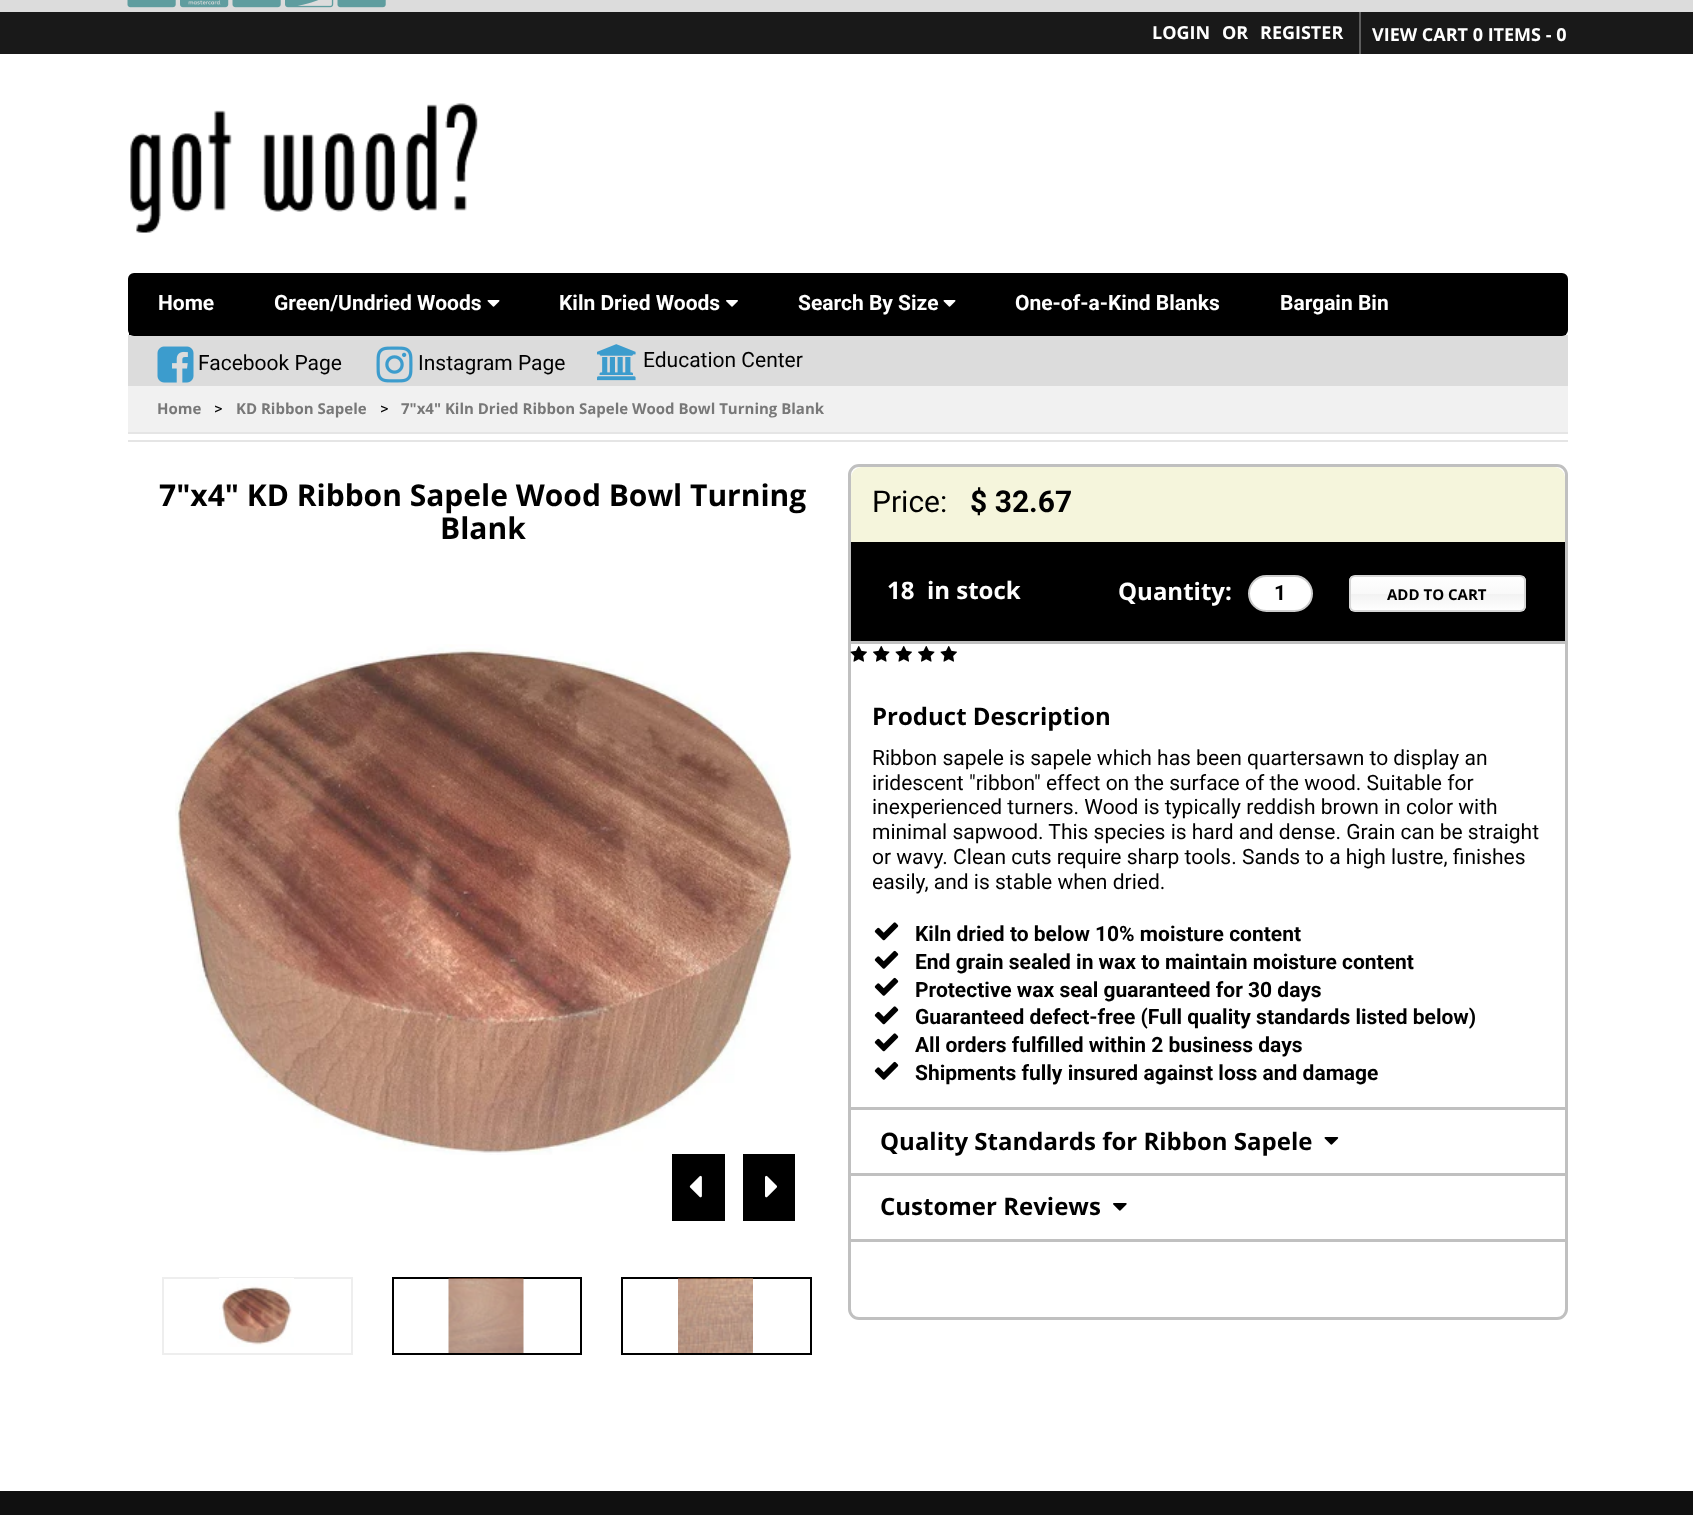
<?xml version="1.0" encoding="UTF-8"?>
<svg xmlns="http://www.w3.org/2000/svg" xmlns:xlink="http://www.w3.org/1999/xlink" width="1693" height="1515">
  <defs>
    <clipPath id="clip1"><rect x="1349" y="575" width="177" height="37" rx="6" /></clipPath>
    <linearGradient id="g1" gradientUnits="userSpaceOnUse" x1="1437" y1="576" x2="1437" y2="611"><stop offset="0" stop-color="#ffffff" /><stop offset="0.5" stop-color="#f9f9f9" /><stop offset="0.51" stop-color="#f2f2f2" /><stop offset="1" stop-color="#ffffff" /></linearGradient>
  </defs>
  <rect width="100%" height="100%" fill="#ffffff" />
  <rect width="1693" height="12" fill="#dcdcdc" />
  <image x="127" y="0" width="49" height="8" xlink:href="image1.png" />
  <image x="180" y="0" width="49" height="8" xlink:href="image2.png" />
  <image x="232" y="0" width="49" height="8" xlink:href="image3.png" />
  <image x="285" y="0" width="49" height="8" xlink:href="image4.png" />
  <image x="337" y="0" width="49" height="8" xlink:href="image1.png" />
  <rect y="12" width="1693" height="42" fill="#191919" />
  <rect x="1359" y="12" width="2" height="42" fill="#5d5d5d" />
  <image x="130" y="103" width="348" height="130" xlink:href="image5.png" />
  <rect x="128" y="335" width="1440" height="51" fill="#dcdcdc" />
  <rect x="129" y="274" width="1438" height="61" rx="5" fill="#000000" stroke="#000000" stroke-width="2" />
  <path d="M 140 275 h 1415 c 6 0 11 5 11 11 v 49 h -1437 v -49 c 0 -6 5 -11 11 -11 z" fill="#000000" />
  <image x="487" y="300" width="13" height="7" xlink:href="image6.png" />
  <image x="726" y="300" width="12" height="7" xlink:href="image7.png" />
  <image x="943" y="300" width="13" height="7" xlink:href="image6.png" />
  <image x="157" y="346" width="37" height="37" xlink:href="image8.png" />
  <image x="376" y="346" width="37" height="37" xlink:href="image9.png" />
  <image x="597" y="344" width="39" height="37" xlink:href="image10.png" />
  <rect x="128" y="440" width="1440" height="2" fill="#e5e5e5" />
  <rect x="128" y="386" width="1440" height="46" fill="#f1f1f1" />
  <rect x="128" y="432" width="1440" height="2" fill="#e5e5e5" />
  <image x="175" y="644" width="617" height="511" xlink:href="image11.png" />
  <rect x="672" y="1154" width="53" height="67" fill="#000000" />
  <image x="689" y="1175" width="13" height="23" xlink:href="image12.png" />
  <rect x="743" y="1154" width="52" height="67" fill="#000000" />
  <image x="765" y="1175" width="12" height="23" xlink:href="image13.png" />
  <rect x="163" y="1278" width="189" height="76" fill="none" stroke="#eeeeee" stroke-width="2" />
  <image x="219" y="1278" width="75" height="69" xlink:href="image14.png" />
  <rect x="393" y="1278" width="188" height="76" fill="none" stroke="#000000" stroke-width="2" />
  <image x="448" y="1278" width="76" height="75" xlink:href="image15.png" />
  <rect x="622" y="1278" width="189" height="76" fill="none" stroke="#000000" stroke-width="2" />
  <image x="678" y="1278" width="75" height="75" xlink:href="image16.png" />
  <rect x="849.5" y="465.5" width="717" height="853" rx="9.5" fill="none" stroke="#c0c0c0" stroke-width="3" />
  <path d="M 862 467 h 692 c 6 0 11 5 11 11 v 64 h -714 v -64 c 0 -6 5 -11 11 -11 z" fill="#f5f5dc" />
  <rect x="851" y="542" width="714" height="99" fill="#000000" />
  <rect x="851" y="641" width="714" height="3" fill="#c0c0c0" />
  <rect x="1249" y="576" width="63" height="35" rx="17.5" fill="#ffffff" stroke="#cccccc" stroke-width="2" />
  <g clip-path="url(#clip1)">
    <rect x="1349" y="576" width="177" height="35" fill="url(#g1)" />
  </g>
  <rect x="1350" y="576" width="175" height="35" rx="5" fill="none" stroke="#d6d6d6" stroke-width="2" />
  <image x="850" y="646" width="17" height="16" xlink:href="image17.png" />
  <image x="873" y="646" width="17" height="16" xlink:href="image18.png" />
  <image x="895" y="646" width="17" height="16" xlink:href="image19.png" />
  <image x="918" y="646" width="17" height="16" xlink:href="image18.png" />
  <image x="940" y="646" width="17" height="16" xlink:href="image19.png" />
  <rect x="851" y="1107" width="714" height="3" fill="#c0c0c0" />
  <image x="874" y="922" width="25" height="19" xlink:href="image20.png" />
  <image x="874" y="950" width="25" height="19" xlink:href="image21.png" />
  <image x="874" y="977" width="25" height="19" xlink:href="image21.png" />
  <image x="874" y="1006" width="25" height="19" xlink:href="image20.png" />
  <image x="874" y="1033" width="25" height="19" xlink:href="image20.png" />
  <image x="874" y="1061" width="25" height="19" xlink:href="image21.png" />
  <rect x="851" y="1173" width="714" height="3" fill="#c0c0c0" />
  <image x="1324" y="1137" width="15" height="8" xlink:href="image22.png" />
  <rect x="851" y="1239" width="714" height="3" fill="#c0c0c0" />
  <image x="1113" y="1203" width="14" height="8" xlink:href="image23.png" />
  <rect y="1491" width="1693" height="24" fill="#101010" />
  <text x="1152" y="39" style="font-family: Open Sans; font-size: 18px; font-weight: bold; fill: #ffffff">LOGIN</text>
  <text x="1222" y="39" style="font-family: Open Sans; font-size: 18px; font-weight: bold; fill: #ffffff">OR</text>
  <text x="1260" y="39" style="font-family: Open Sans; font-size: 18px; font-weight: bold; fill: #ffffff">REGISTER</text>
  <text x="1372" y="41" style="font-family: Open Sans; font-size: 18px; font-weight: bold; fill: #ffffff">VIEW CART 0 ITEMS - 0</text>
  <text x="158" y="310" style="font-family: Roboto; font-size: 21px; font-weight: bold; fill: #ffffff">Home</text>
  <text x="274" y="310" style="font-family: Roboto; font-size: 21px; font-weight: bold; fill: #ffffff">Green/Undried Woods</text>
  <text x="559" y="310" style="font-family: Roboto; font-size: 21px; font-weight: bold; fill: #ffffff">Kiln Dried Woods</text>
  <text x="798" y="310" style="font-family: Roboto; font-size: 21px; font-weight: bold; fill: #ffffff">Search By Size</text>
  <text x="1015" y="310" style="font-family: Roboto; font-size: 21px; font-weight: bold; fill: #ffffff">One-of-a-Kind Blanks</text>
  <text x="1280" y="310" style="font-family: Roboto; font-size: 21px; font-weight: bold; fill: #ffffff">Bargain Bin</text>
  <text x="198" y="370" style="font-family: Roboto; font-size: 21px; fill: #000000">Facebook Page</text>
  <text x="418" y="370" style="font-family: Roboto; font-size: 21px; fill: #000000">Instagram Page</text>
  <text x="643" y="367" style="font-family: Roboto; font-size: 21px; fill: #000000">Education Center</text>
  <text x="157" y="414" style="font-family: Open Sans; font-size: 15px; font-weight: bold; fill: #787878">Home</text>
  <text x="214" y="414" style="font-family: Roboto; font-size: 16px; fill: #000000">&gt;</text>
  <text x="236" y="414" style="font-family: Open Sans; font-size: 15px; font-weight: bold; fill: #787878">KD Ribbon Sapele</text>
  <text x="380" y="414" style="font-family: Roboto; font-size: 16px; fill: #000000">&gt;</text>
  <text x="401" y="414" style="font-family: Open Sans; font-size: 15px; font-weight: bold; fill: #787878">7"x4" Kiln Dried Ribbon Sapele Wood Bowl Turning Blank</text>
  <text x="159" y="506" style="font-family: Open Sans; font-size: 30px; font-weight: bold; fill: #000000">7"x4" KD Ribbon Sapele Wood Bowl Turning</text>
  <text x="440" y="539" style="font-family: Open Sans; font-size: 30px; font-weight: bold; fill: #000000">Blank</text>
  <text x="872" y="512" style="font-family: Roboto; font-size: 30px; fill: #000000">Price:</text>
  <text x="970" y="512" style="font-family: Roboto; font-size: 30px; font-weight: bold; fill: #000000">$ 32.67</text>
  <text x="887" y="599" style="font-family: Open Sans; font-size: 24px; font-weight: bold; fill: #ffffff" xml:space="preserve">18  in stock</text>
  <text x="1118" y="600" style="font-family: Open Sans; font-size: 24px; font-weight: bold; fill: #ffffff">Quantity:</text>
  <text x="1274" y="600" style="font-family: Roboto; font-size: 21px; font-weight: bold; fill: #000000">1</text>
  <text x="1387" y="600" style="font-family: Open Sans; font-size: 15px; font-weight: bold; fill: #000000">ADD TO CART</text>
  <text x="872" y="725" style="font-family: Open Sans; font-size: 24px; font-weight: bold; fill: #000000">Product Description</text>
  <text x="872" y="765" style="font-family: Roboto; font-size: 21px; fill: #000000">Ribbon sapele is sapele which has been quartersawn to display an</text>
  <text x="872" y="790" style="font-family: Roboto; font-size: 21px; fill: #000000">iridescent "ribbon" effect on the surface of the wood. Suitable for</text>
  <text x="872" y="814" style="font-family: Roboto; font-size: 21px; fill: #000000">inexperienced turners. Wood is typically reddish brown in color with</text>
  <text x="872" y="839" style="font-family: Roboto; font-size: 21px; fill: #000000">minimal sapwood. This species is hard and dense. Grain can be straight</text>
  <text x="872" y="864" style="font-family: Roboto; font-size: 21px; fill: #000000">or wavy. Clean cuts require sharp tools. Sands to a high lustre, finishes</text>
  <text x="872" y="889" style="font-family: Roboto; font-size: 21px; fill: #000000">easily, and is stable when dried.</text>
  <text x="915" y="941" style="font-family: Roboto; font-size: 21px; font-weight: bold; fill: #000000">Kiln dried to below 10% moisture content</text>
  <text x="915" y="969" style="font-family: Roboto; font-size: 21px; font-weight: bold; fill: #000000">End grain sealed in wax to maintain moisture content</text>
  <text x="915" y="997" style="font-family: Roboto; font-size: 21px; font-weight: bold; fill: #000000">Protective wax seal guaranteed for 30 days</text>
  <text x="915" y="1024" style="font-family: Roboto; font-size: 21px; font-weight: bold; fill: #000000">Guaranteed defect-free (Full quality standards listed below)</text>
  <text x="915" y="1052" style="font-family: Roboto; font-size: 21px; font-weight: bold; fill: #000000">All orders fulfilled within 2 business days</text>
  <text x="915" y="1080" style="font-family: Roboto; font-size: 21px; font-weight: bold; fill: #000000">Shipments fully insured against loss and damage</text>
  <text x="880" y="1150" style="font-family: Open Sans; font-size: 24px; font-weight: bold; fill: #000000">Quality Standards for Ribbon Sapele</text>
  <text x="880" y="1215" style="font-family: Open Sans; font-size: 24px; font-weight: bold; fill: #000000">Customer Reviews</text>
</svg>
